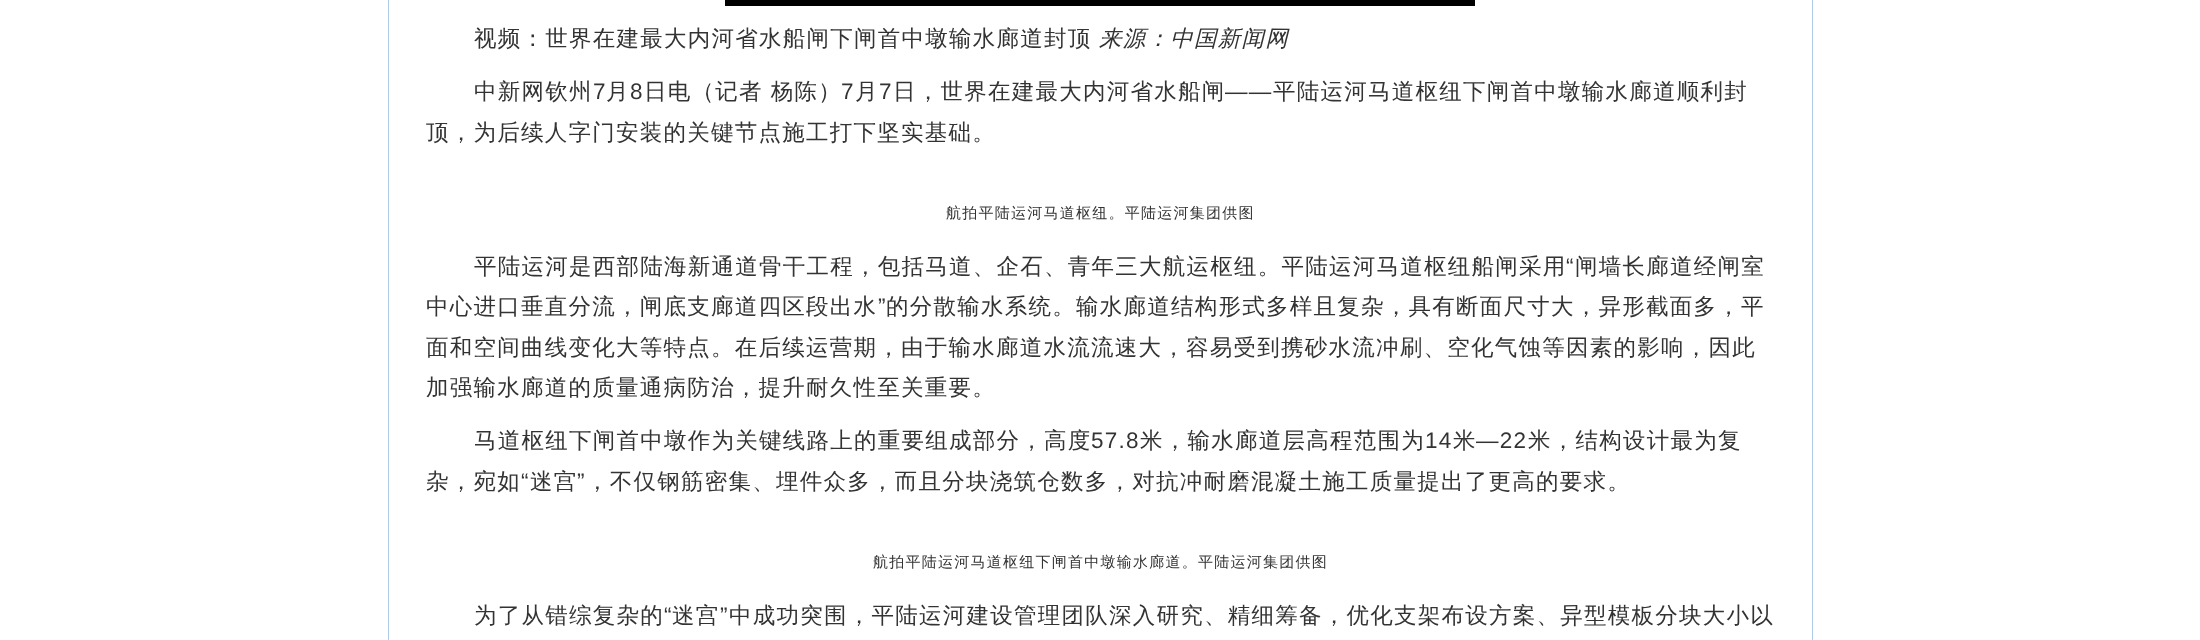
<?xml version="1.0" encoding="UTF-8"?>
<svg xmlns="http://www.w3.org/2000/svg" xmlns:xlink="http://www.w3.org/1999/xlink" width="2200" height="640">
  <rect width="100%" height="100%" fill="#ffffff" />
  <rect x="388.5" y="-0.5" width="1424" height="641" fill="none" stroke="#adceea" />
  <rect x="725" width="750" height="6" fill="#000000" />
  <text x="474" y="46" style="font-family: WenQuanYi Zen Hei; font-size: 22.5px; font-weight: 500; letter-spacing: 1.25px; fill: #333333">视频：世界在建最大内河省水船闸下闸首中墩输水廊道封顶</text>
  <text x="1099" y="46" style="font-family: WenQuanYi Zen Hei; font-size: 22.5px; font-weight: 500; font-style: italic; letter-spacing: 1.25px; fill: #333333">来源：中国新闻网</text>
  <text x="474" y="99" style="font-family: WenQuanYi Zen Hei; font-size: 22.5px; font-weight: 500; letter-spacing: 1.25px; fill: #333333">中新网钦州</text>
  <text x="593" y="99" style="font-family: Liberation Sans; font-size: 22.5px; letter-spacing: 1.25px; fill: #333333">7</text>
  <text x="606" y="99" style="font-family: WenQuanYi Zen Hei; font-size: 22.5px; font-weight: 500; letter-spacing: 1.25px; fill: #333333">月</text>
  <text x="630" y="99" style="font-family: Liberation Sans; font-size: 22.5px; letter-spacing: 1.25px; fill: #333333">8</text>
  <text x="644" y="99" style="font-family: WenQuanYi Zen Hei; font-size: 22.5px; font-weight: 500; letter-spacing: 1.25px; fill: #333333">日电（记者 杨陈）</text>
  <text x="841" y="99" style="font-family: Liberation Sans; font-size: 22.5px; letter-spacing: 1.25px; fill: #333333">7</text>
  <text x="855" y="99" style="font-family: WenQuanYi Zen Hei; font-size: 22.5px; font-weight: 500; letter-spacing: 1.25px; fill: #333333">月</text>
  <text x="879" y="99" style="font-family: Liberation Sans; font-size: 22.5px; letter-spacing: 1.25px; fill: #333333">7</text>
  <text x="893" y="99" style="font-family: WenQuanYi Zen Hei; font-size: 22.5px; font-weight: 500; letter-spacing: 1.25px; fill: #333333">日，世界在建最大内河省水船闸</text>
  <text x="1225" y="99" style="font-family: Liberation Sans; font-size: 22.5px; letter-spacing: 1.25px; fill: #333333">——</text>
  <text x="1273" y="99" style="font-family: WenQuanYi Zen Hei; font-size: 22.5px; font-weight: 500; letter-spacing: 1.25px; fill: #333333">平陆运河马道枢纽下闸首中墩输水廊道顺利封</text>
  <text x="426" y="140" style="font-family: WenQuanYi Zen Hei; font-size: 22.5px; font-weight: 500; letter-spacing: 1.25px; fill: #333333">顶，为后续人字门安装的关键节点施工打下坚实基础。</text>
  <text x="946" y="218" style="font-family: WenQuanYi Zen Hei; font-size: 15px; font-weight: 500; letter-spacing: 1.25px; fill: #333333">航拍平陆运河马道枢纽。平陆运河集团供图</text>
  <text x="474" y="274" style="font-family: WenQuanYi Zen Hei; font-size: 22.5px; font-weight: 500; letter-spacing: 1.25px; fill: #333333">平陆运河是西部陆海新通道骨干工程，包括马道、企石、青年三大航运枢纽。平陆运河马道枢纽船闸采用</text>
  <text x="1566" y="274" style="font-family: Liberation Sans; font-size: 22.5px; letter-spacing: 1.25px; fill: #333333">“</text>
  <text x="1575" y="274" style="font-family: WenQuanYi Zen Hei; font-size: 22.5px; font-weight: 500; letter-spacing: 1.25px; fill: #333333">闸墙长廊道经闸室</text>
  <text x="426" y="314" style="font-family: WenQuanYi Zen Hei; font-size: 22.5px; font-weight: 500; letter-spacing: 1.25px; fill: #333333">中心进口垂直分流，闸底支廊道四区段出水</text>
  <text x="878" y="314" style="font-family: Liberation Sans; font-size: 22.5px; letter-spacing: 1.25px; fill: #333333">”</text>
  <text x="886" y="314" style="font-family: WenQuanYi Zen Hei; font-size: 22.5px; font-weight: 500; letter-spacing: 1.25px; fill: #333333">的分散输水系统。输水廊道结构形式多样且复杂，具有断面尺寸大，异形截面多，平</text>
  <text x="426" y="355" style="font-family: WenQuanYi Zen Hei; font-size: 22.5px; font-weight: 500; letter-spacing: 1.25px; fill: #333333">面和空间曲线变化大等特点。在后续运营期，由于输水廊道水流流速大，容易受到携砂水流冲刷、空化气蚀等因素的影响，因此</text>
  <text x="426" y="395" style="font-family: WenQuanYi Zen Hei; font-size: 22.5px; font-weight: 500; letter-spacing: 1.25px; fill: #333333">加强输水廊道的质量通病防治，提升耐久性至关重要。</text>
  <text x="474" y="448" style="font-family: WenQuanYi Zen Hei; font-size: 22.5px; font-weight: 500; letter-spacing: 1.25px; fill: #333333">马道枢纽下闸首中墩作为关键线路上的重要组成部分，高度</text>
  <text x="1091" y="448" style="font-family: Liberation Sans; font-size: 22.5px; letter-spacing: 1.25px; fill: #333333">57.8</text>
  <text x="1140" y="448" style="font-family: WenQuanYi Zen Hei; font-size: 22.5px; font-weight: 500; letter-spacing: 1.25px; fill: #333333">米，输水廊道层高程范围为</text>
  <text x="1425" y="448" style="font-family: Liberation Sans; font-size: 22.5px; letter-spacing: 1.25px; fill: #333333">14</text>
  <text x="1453" y="448" style="font-family: WenQuanYi Zen Hei; font-size: 22.5px; font-weight: 500; letter-spacing: 1.25px; fill: #333333">米</text>
  <text x="1476" y="448" style="font-family: Liberation Sans; font-size: 22.5px; letter-spacing: 1.25px; fill: #333333">—22</text>
  <text x="1528" y="448" style="font-family: WenQuanYi Zen Hei; font-size: 22.5px; font-weight: 500; letter-spacing: 1.25px; fill: #333333">米，结构设计最为复</text>
  <text x="426" y="489" style="font-family: WenQuanYi Zen Hei; font-size: 22.5px; font-weight: 500; letter-spacing: 1.25px; fill: #333333">杂，宛如</text>
  <text x="521" y="489" style="font-family: Liberation Sans; font-size: 22.5px; letter-spacing: 1.25px; fill: #333333">“</text>
  <text x="530" y="489" style="font-family: WenQuanYi Zen Hei; font-size: 22.5px; font-weight: 500; letter-spacing: 1.25px; fill: #333333">迷宫</text>
  <text x="577" y="489" style="font-family: Liberation Sans; font-size: 22.5px; letter-spacing: 1.25px; fill: #333333">”</text>
  <text x="586" y="489" style="font-family: WenQuanYi Zen Hei; font-size: 22.5px; font-weight: 500; letter-spacing: 1.25px; fill: #333333">，不仅钢筋密集、埋件众多，而且分块浇筑仓数多，对抗冲耐磨混凝土施工质量提出了更高的要求。</text>
  <text x="873" y="567" style="font-family: WenQuanYi Zen Hei; font-size: 15px; font-weight: 500; letter-spacing: 1.25px; fill: #333333">航拍平陆运河马道枢纽下闸首中墩输水廊道。平陆运河集团供图</text>
  <text x="474" y="623" style="font-family: WenQuanYi Zen Hei; font-size: 22.5px; font-weight: 500; letter-spacing: 1.25px; fill: #333333">为了从错综复杂的</text>
  <text x="664" y="623" style="font-family: Liberation Sans; font-size: 22.5px; letter-spacing: 1.25px; fill: #333333">“</text>
  <text x="672" y="623" style="font-family: WenQuanYi Zen Hei; font-size: 22.5px; font-weight: 500; letter-spacing: 1.25px; fill: #333333">迷宫</text>
  <text x="720" y="623" style="font-family: Liberation Sans; font-size: 22.5px; letter-spacing: 1.25px; fill: #333333">”</text>
  <text x="729" y="623" style="font-family: WenQuanYi Zen Hei; font-size: 22.5px; font-weight: 500; letter-spacing: 1.25px; fill: #333333">中成功突围，平陆运河建设管理团队深入研究、精细筹备，优化支架布设方案、异型模板分块大小以</text>
</svg>
